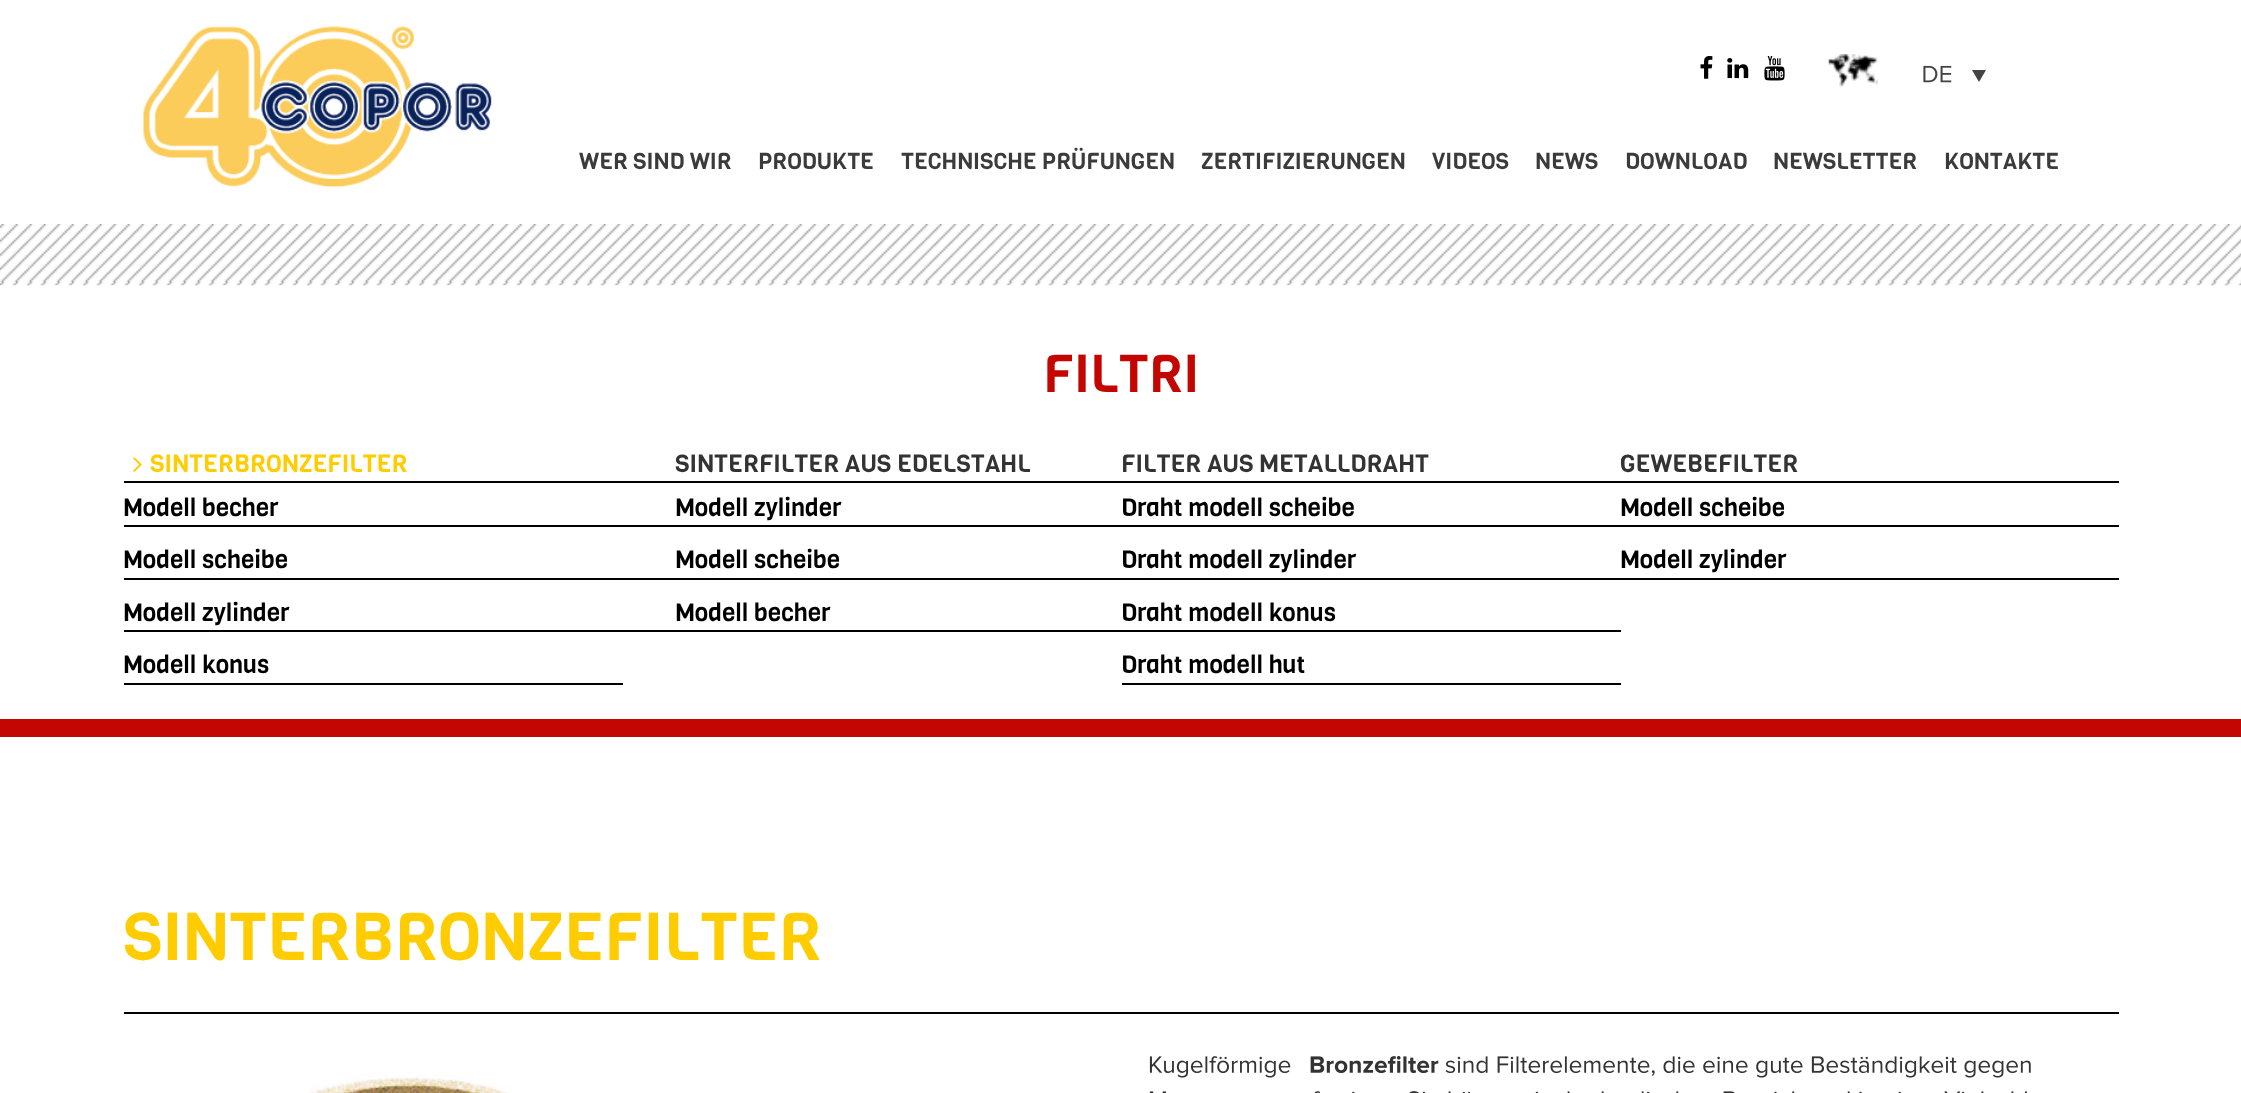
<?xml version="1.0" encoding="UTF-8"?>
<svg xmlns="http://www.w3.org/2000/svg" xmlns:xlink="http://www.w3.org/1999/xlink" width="2241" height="1093">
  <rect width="100%" height="100%" fill="#ffffff" />
  <image x="1700" y="56" width="13" height="23" xlink:href="image1.png" />
  <image x="1727" y="58" width="22" height="21" xlink:href="image2.png" />
  <image x="1764" y="56" width="21" height="25" xlink:href="image3.png" />
  <image x="1828" y="54" width="50" height="33" xlink:href="image4.png" />
  <image x="1923" y="65" width="29" height="18" xlink:href="image5.png" />
  <path d="M 1972 70 h 14 l -7 12 z" fill="#444444" />
  <image x="143" y="26" width="349" height="162" xlink:href="image6.png" />
  <image x="0" y="224" width="2241" height="62" xlink:href="image7.png" />
  <image x="133" y="457" width="9" height="15" xlink:href="image8.png" />
  <rect x="124" y="481" width="1995" height="2" fill="#000000" />
  <rect x="124" y="525" width="1995" height="2" fill="#000000" />
  <rect x="124" y="578" width="1995" height="2" fill="#000000" />
  <rect x="124" y="630" width="1497" height="2" fill="#000000" />
  <rect x="124" y="683" width="499" height="2" fill="#000000" />
  <rect x="1122" y="683" width="499" height="2" fill="#000000" />
  <rect y="719" width="2241" height="18" fill="#c30602" />
  <rect x="124" y="1012" width="1995" height="2" fill="#000000" />
  <image x="308" y="1072" width="202" height="21" xlink:href="image9.png" />
  <image x="1149" y="1056" width="142" height="22" xlink:href="image10.png" />
  <image x="1310" y="1056" width="129" height="17" xlink:href="image11.png" />
  <image x="1445" y="1056" width="586" height="22" xlink:href="image12.png" />
  <image x="1149" y="1091" width="878" height="2" xlink:href="image13.png" />
  <text x="579" y="169" style="font-family: Viga; font-size: 22.75px; fill: #3b3b3b">WER SIND WIR</text>
  <text x="758" y="169" style="font-family: Viga; font-size: 22.75px; fill: #3b3b3b">PRODUKTE</text>
  <text x="901" y="169" style="font-family: Viga; font-size: 22.75px; fill: #3b3b3b">TECHNISCHE PRÜFUNGEN</text>
  <text x="1201" y="169" style="font-family: Viga; font-size: 22.75px; fill: #3b3b3b">ZERTIFIZIERUNGEN</text>
  <text x="1432" y="169" style="font-family: Viga; font-size: 22.75px; fill: #3b3b3b">VIDEOS</text>
  <text x="1535" y="169" style="font-family: Viga; font-size: 22.75px; fill: #3b3b3b">NEWS</text>
  <text x="1625" y="169" style="font-family: Viga; font-size: 22.75px; fill: #3b3b3b">DOWNLOAD</text>
  <text x="1773" y="169" style="font-family: Viga; font-size: 22.75px; fill: #3b3b3b">NEWSLETTER</text>
  <text x="1944" y="169" style="font-family: Viga; font-size: 22.75px; fill: #3b3b3b">KONTAKTE</text>
  <text x="1043" y="392" style="font-family: Viga; font-size: 52.5px; fill: #c30602">FILTRI</text>
  <text x="150" y="472" style="font-family: Viga; font-size: 24.5px; fill: #ffcc00">SINTERBRONZEFILTER</text>
  <text x="123" y="516" style="font-family: Viga; font-size: 24.5px; fill: #000000">Modell becher</text>
  <text x="123" y="568" style="font-family: Viga; font-size: 24.5px; fill: #000000">Modell scheibe</text>
  <text x="123" y="621" style="font-family: Viga; font-size: 24.5px; fill: #000000">Modell zylinder</text>
  <text x="123" y="673" style="font-family: Viga; font-size: 24.5px; fill: #000000">Modell konus</text>
  <text x="675" y="472" style="font-family: Viga; font-size: 24.5px; fill: #333333">SINTERFILTER AUS EDELSTAHL</text>
  <text x="675" y="516" style="font-family: Viga; font-size: 24.5px; fill: #000000">Modell zylinder</text>
  <text x="675" y="568" style="font-family: Viga; font-size: 24.5px; fill: #000000">Modell scheibe</text>
  <text x="675" y="621" style="font-family: Viga; font-size: 24.5px; fill: #000000">Modell becher</text>
  <text x="1121" y="472" style="font-family: Viga; font-size: 24.5px; fill: #333333">FILTER AUS METALLDRAHT</text>
  <text x="1121" y="516" style="font-family: Viga; font-size: 24.5px; fill: #000000">Draht modell scheibe</text>
  <text x="1121" y="568" style="font-family: Viga; font-size: 24.5px; fill: #000000">Draht modell zylinder</text>
  <text x="1121" y="621" style="font-family: Viga; font-size: 24.5px; fill: #000000">Draht modell konus</text>
  <text x="1121" y="673" style="font-family: Viga; font-size: 24.5px; fill: #000000">Draht modell hut</text>
  <text x="1620" y="472" style="font-family: Viga; font-size: 24.5px; fill: #333333">GEWEBEFILTER</text>
  <text x="1620" y="516" style="font-family: Viga; font-size: 24.5px; fill: #000000">Modell scheibe</text>
  <text x="1620" y="568" style="font-family: Viga; font-size: 24.5px; fill: #000000">Modell zylinder</text>
  <text x="123" y="960" style="font-family: Viga; font-size: 66.5px; fill: #ffcc00">SINTERBRONZEFILTER</text>
</svg>
